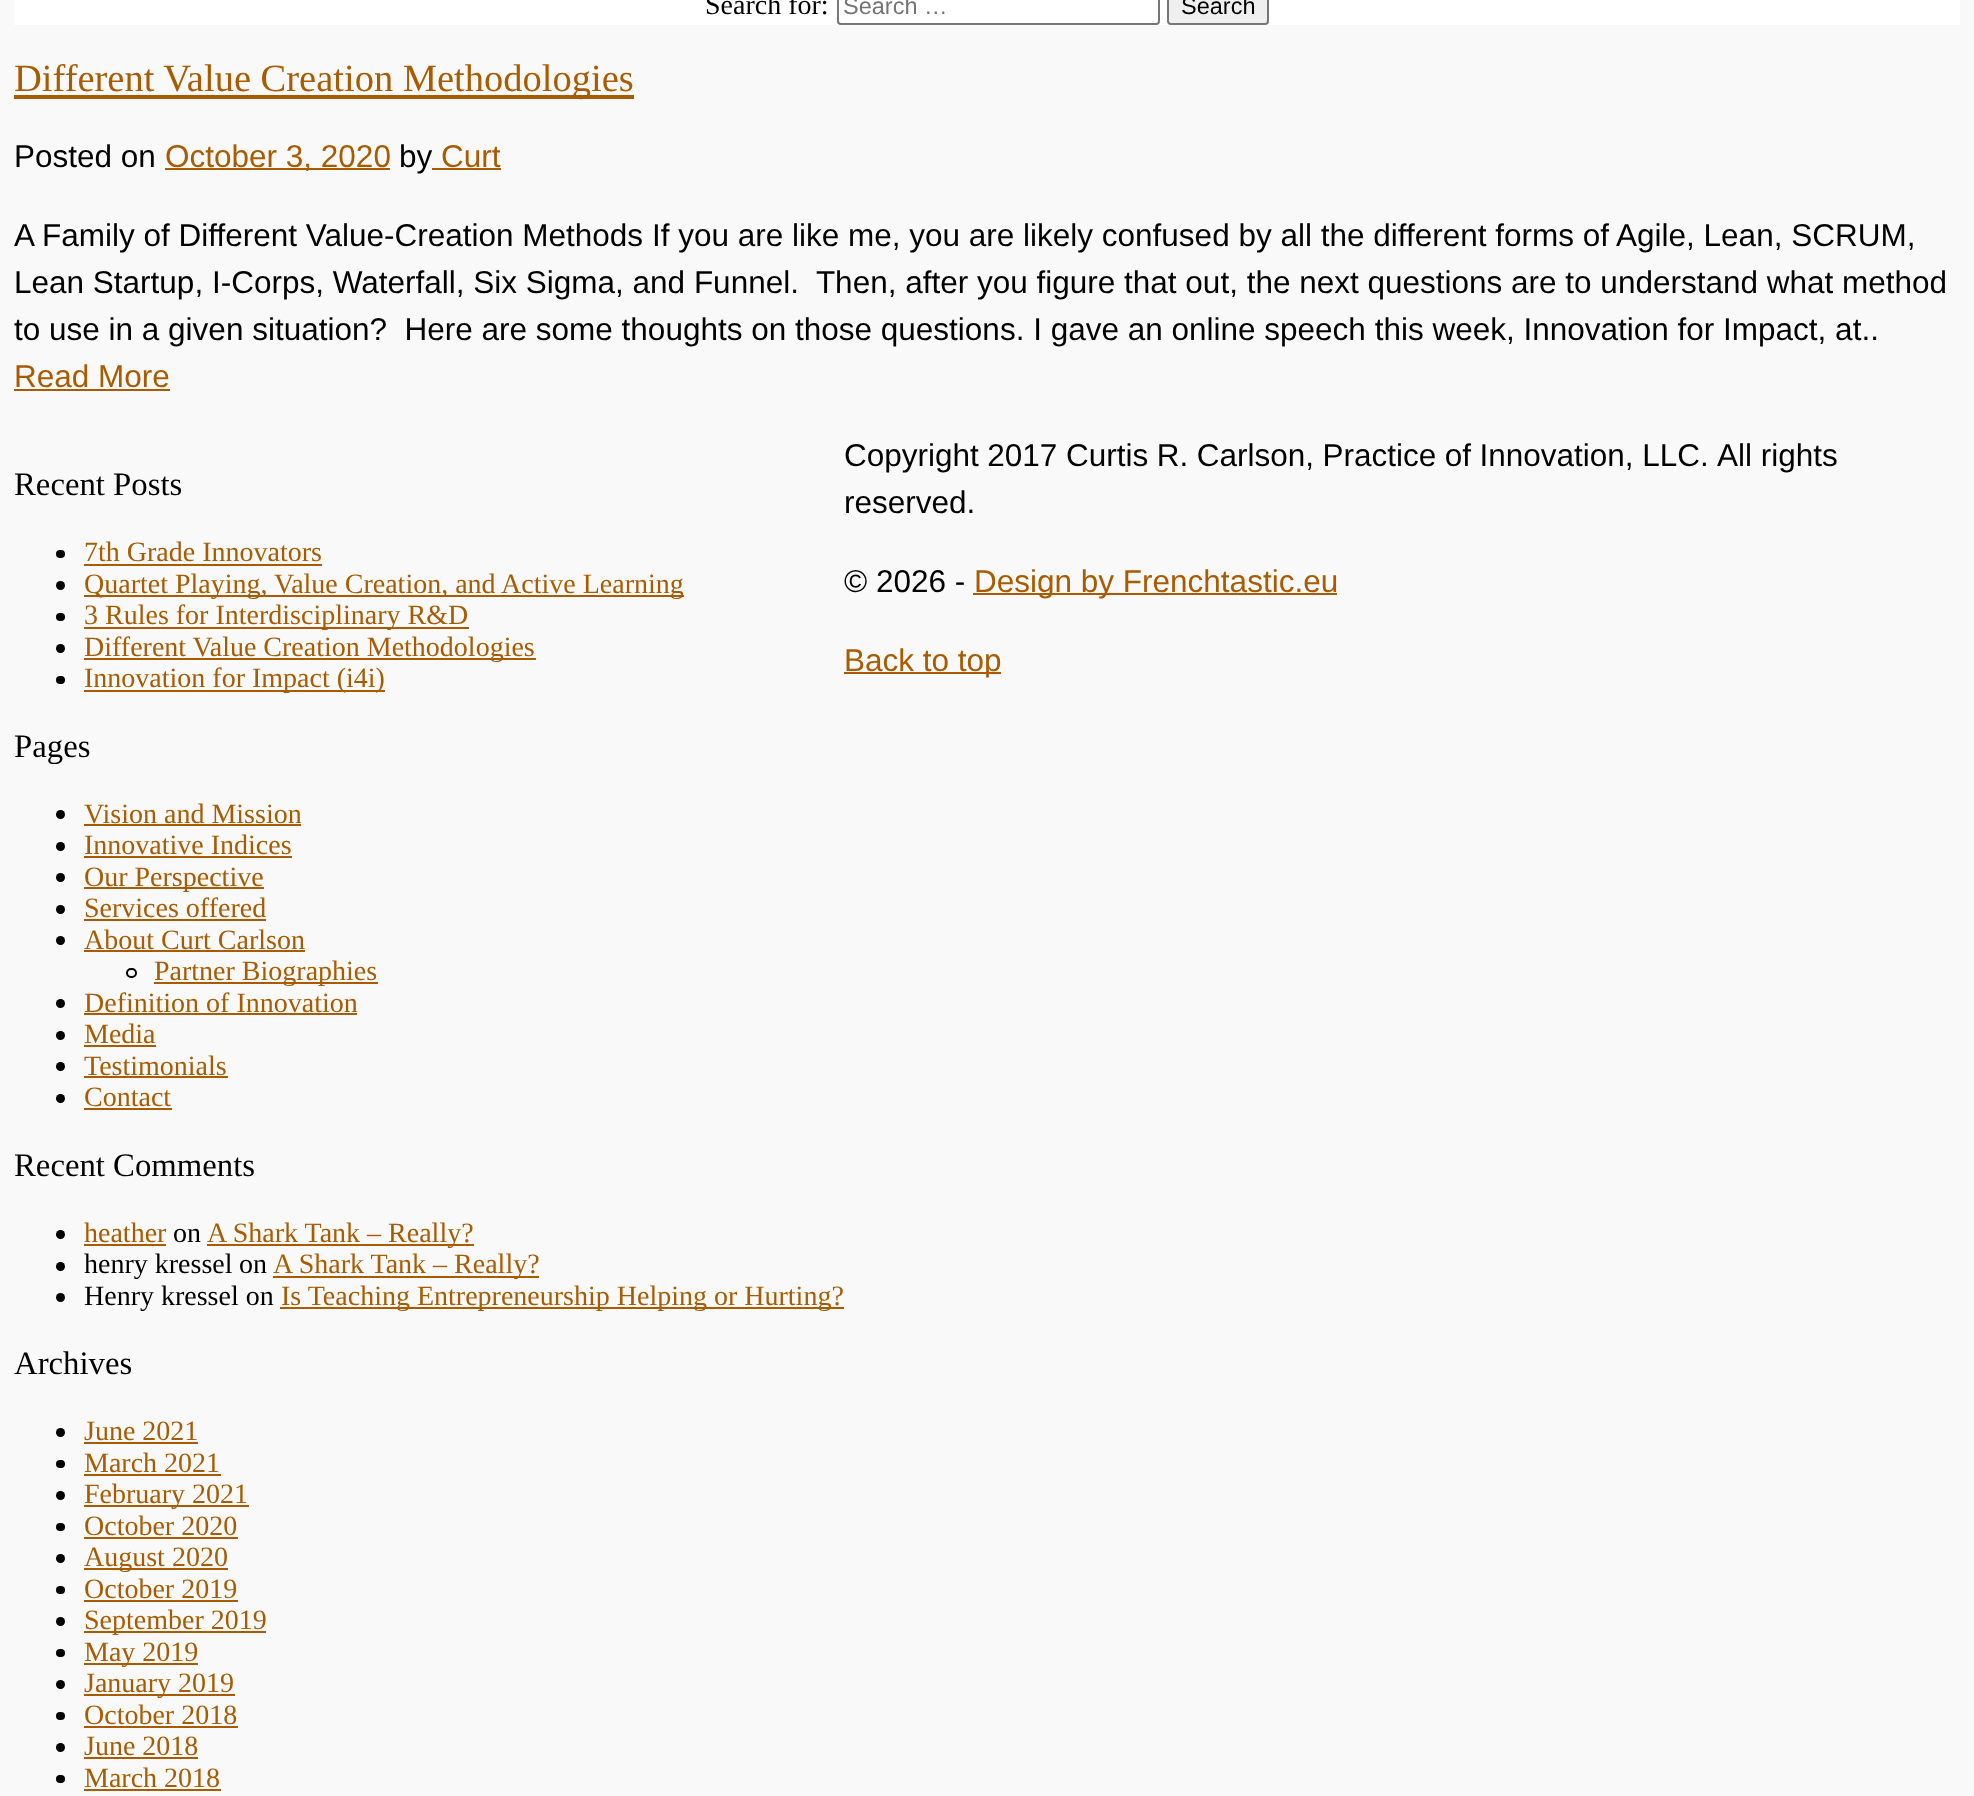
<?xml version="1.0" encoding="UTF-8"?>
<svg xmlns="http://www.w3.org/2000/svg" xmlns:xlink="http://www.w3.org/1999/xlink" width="1974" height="1796">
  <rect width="100%" height="100%" fill="#f9f9f9" />
  <rect x="14" width="1946" height="25" fill="#ffffff" />
  <rect x="838" y="-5" width="321" height="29" rx="3" fill="none" stroke="#767676" stroke-width="2" />
  <rect x="1168" y="-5" width="100" height="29" rx="3" fill="#efefef" stroke="#767676" stroke-width="2" />
  <rect x="14" y="95" width="620" height="4" fill="#aa5b00" />
  <rect x="165" y="168" width="225" height="2" fill="#aa5b00" />
  <rect x="14" y="389" width="156" height="2" fill="#aa5b00" />
  <rect x="56" y="550" width="9" height="8" rx="4" fill="#000000" />
  <rect x="84" y="564" width="238" height="2" fill="#aa5b00" />
  <circle cx="60.5" cy="585.5" r="4.5" fill="#000000" />
  <rect x="84" y="595" width="600" height="2" fill="#aa5b00" />
  <rect x="56" y="613" width="9" height="8" rx="4" fill="#000000" />
  <rect x="84" y="627" width="385" height="2" fill="#aa5b00" />
  <circle cx="60.5" cy="648.5" r="4.5" fill="#000000" />
  <rect x="84" y="658" width="452" height="2" fill="#aa5b00" />
  <rect x="56" y="676" width="9" height="8" rx="4" fill="#000000" />
  <rect x="84" y="690" width="301" height="2" fill="#aa5b00" />
  <circle cx="60.5" cy="814.5" r="4.5" fill="#000000" />
  <rect x="84" y="824" width="217" height="2" fill="#aa5b00" />
  <circle cx="60.5" cy="846.5" r="4.5" fill="#000000" />
  <rect x="84" y="856" width="208" height="2" fill="#aa5b00" />
  <circle cx="60.5" cy="877.5" r="4.5" fill="#000000" />
  <rect x="84" y="887" width="180" height="2" fill="#aa5b00" />
  <circle cx="60.5" cy="909.5" r="4.5" fill="#000000" />
  <rect x="84" y="919" width="182" height="2" fill="#aa5b00" />
  <circle cx="60.5" cy="940.5" r="4.5" fill="#000000" />
  <rect x="84" y="950" width="221" height="2" fill="#aa5b00" />
  <rect x="127" y="969" width="9" height="8" rx="4" fill="none" stroke="#000000" stroke-width="2" />
  <rect x="154" y="982" width="224" height="2" fill="#aa5b00" />
  <circle cx="60.5" cy="1003.5" r="4.5" fill="#000000" />
  <rect x="84" y="1013" width="273" height="2" fill="#aa5b00" />
  <circle cx="60.5" cy="1035.5" r="4.5" fill="#000000" />
  <rect x="84" y="1045" width="72" height="2" fill="#aa5b00" />
  <circle cx="60.5" cy="1066.5" r="4.5" fill="#000000" />
  <rect x="84" y="1076" width="144" height="2" fill="#aa5b00" />
  <circle cx="60.5" cy="1098.5" r="4.5" fill="#000000" />
  <rect x="84" y="1108" width="88" height="2" fill="#aa5b00" />
  <circle cx="60.5" cy="1234.5" r="4.5" fill="#000000" />
  <rect x="84" y="1244" width="82" height="2" fill="#aa5b00" />
  <rect x="207" y="1244" width="267" height="2" fill="#aa5b00" />
  <circle cx="60.5" cy="1266.5" r="4.5" fill="#000000" />
  <rect x="273" y="1276" width="266" height="2" fill="#aa5b00" />
  <circle cx="60.5" cy="1297.5" r="4.5" fill="#000000" />
  <rect x="280" y="1307" width="564" height="2" fill="#aa5b00" />
  <circle cx="60.5" cy="1432.5" r="4.5" fill="#000000" />
  <rect x="84" y="1442" width="114" height="2" fill="#aa5b00" />
  <rect x="56" y="1460" width="9" height="8" rx="4" fill="#000000" />
  <rect x="84" y="1474" width="137" height="2" fill="#aa5b00" />
  <circle cx="60.5" cy="1495.5" r="4.5" fill="#000000" />
  <rect x="84" y="1505" width="165" height="2" fill="#aa5b00" />
  <rect x="56" y="1523" width="9" height="8" rx="4" fill="#000000" />
  <rect x="84" y="1537" width="154" height="2" fill="#aa5b00" />
  <circle cx="60.5" cy="1558.5" r="4.5" fill="#000000" />
  <rect x="84" y="1568" width="144" height="2" fill="#aa5b00" />
  <rect x="56" y="1586" width="9" height="8" rx="4" fill="#000000" />
  <rect x="84" y="1600" width="154" height="2" fill="#aa5b00" />
  <circle cx="60.5" cy="1621.5" r="4.5" fill="#000000" />
  <rect x="84" y="1631" width="182" height="2" fill="#aa5b00" />
  <rect x="56" y="1649" width="9" height="8" rx="4" fill="#000000" />
  <rect x="84" y="1663" width="114" height="2" fill="#aa5b00" />
  <circle cx="60.5" cy="1684.5" r="4.5" fill="#000000" />
  <rect x="84" y="1694" width="151" height="2" fill="#aa5b00" />
  <rect x="56" y="1712" width="9" height="8" rx="4" fill="#000000" />
  <rect x="84" y="1726" width="154" height="2" fill="#aa5b00" />
  <circle cx="60.5" cy="1747.5" r="4.5" fill="#000000" />
  <rect x="84" y="1757" width="114" height="2" fill="#aa5b00" />
  <rect x="56" y="1775" width="9" height="8" rx="4" fill="#000000" />
  <rect x="84" y="1789" width="137" height="2" fill="#aa5b00" />
  <rect x="973" y="593" width="364" height="2" fill="#aa5b00" />
  <rect x="844" y="672" width="157" height="2" fill="#aa5b00" />
  <text x="705" y="14" style="font-family: Liberation Serif; font-size: 28px; fill: #000000">Search for:</text>
  <text x="843" y="14" style="font-family: Liberation Sans; font-size: 23.5px; fill: #757575">Search …</text>
  <text x="1181" y="14" style="font-family: Liberation Sans; font-size: 23.5px; fill: #000000">Search</text>
  <text x="14" y="91" style="font-family: Liberation Serif; font-size: 38.5px; fill: #aa5b00">Different Value Creation Methodologies</text>
  <text x="14" y="167" style="font-family: Liberation Sans; font-size: 31.5px; fill: #000000">Posted on</text>
  <text x="165" y="167" style="font-family: Liberation Sans; font-size: 31.5px; fill: #aa5b00">October 3, 2020</text>
  <text x="399" y="167" style="font-family: Liberation Sans; font-size: 31.5px; fill: #000000">by</text>
  <text x="441" y="167" style="font-family: Liberation Sans; font-size: 31.5px; fill: #aa5b00">Curt</text>
  <rect x="432" y="168" width="69" height="2" fill="#aa5b00" />
  <text x="14" y="246" style="font-family: Liberation Sans; font-size: 31.5px; fill: #000000">A Family of Different Value-Creation Methods If you are like me, you are likely confused by all the different forms of Agile, Lean, SCRUM,</text>
  <text x="14" y="293" style="font-family: Liberation Sans; font-size: 31.5px; fill: #000000" xml:space="preserve">Lean Startup, I-Corps, Waterfall, Six Sigma, and Funnel.  Then, after you figure that out, the next questions are to understand what method</text>
  <text x="14" y="340" style="font-family: Liberation Sans; font-size: 31.5px; fill: #000000" xml:space="preserve">to use in a given situation?  Here are some thoughts on those questions. I gave an online speech this week, Innovation for Impact, at..</text>
  <text x="14" y="387" style="font-family: Liberation Sans; font-size: 31.5px; fill: #aa5b00">Read More</text>
  <text x="14" y="495" style="font-family: Liberation Serif; font-size: 32.75px; fill: #000000">Recent Posts</text>
  <text x="84" y="561" style="font-family: Liberation Serif; font-size: 28px; fill: #aa5b00">7th Grade Innovators</text>
  <text x="84" y="593" style="font-family: Liberation Serif; font-size: 28px; fill: #aa5b00">Quartet Playing, Value Creation, and Active Learning</text>
  <text x="84" y="624" style="font-family: Liberation Serif; font-size: 28px; fill: #aa5b00">3 Rules for Interdisciplinary R&amp;D</text>
  <text x="84" y="656" style="font-family: Liberation Serif; font-size: 28px; fill: #aa5b00">Different Value Creation Methodologies</text>
  <text x="84" y="687" style="font-family: Liberation Serif; font-size: 28px; fill: #aa5b00">Innovation for Impact (i4i)</text>
  <text x="14" y="757" style="font-family: Liberation Serif; font-size: 32.75px; fill: #000000">Pages</text>
  <text x="84" y="823" style="font-family: Liberation Serif; font-size: 28px; fill: #aa5b00">Vision and Mission</text>
  <text x="84" y="854" style="font-family: Liberation Serif; font-size: 28px; fill: #aa5b00">Innovative Indices</text>
  <text x="84" y="886" style="font-family: Liberation Serif; font-size: 28px; fill: #aa5b00">Our Perspective</text>
  <text x="84" y="917" style="font-family: Liberation Serif; font-size: 28px; fill: #aa5b00">Services offered</text>
  <text x="84" y="949" style="font-family: Liberation Serif; font-size: 28px; fill: #aa5b00">About Curt Carlson</text>
  <text x="154" y="980" style="font-family: Liberation Serif; font-size: 28px; fill: #aa5b00">Partner Biographies</text>
  <text x="84" y="1012" style="font-family: Liberation Serif; font-size: 28px; fill: #aa5b00">Definition of Innovation</text>
  <text x="84" y="1043" style="font-family: Liberation Serif; font-size: 28px; fill: #aa5b00">Media</text>
  <text x="84" y="1075" style="font-family: Liberation Serif; font-size: 28px; fill: #aa5b00">Testimonials</text>
  <text x="84" y="1106" style="font-family: Liberation Serif; font-size: 28px; fill: #aa5b00">Contact</text>
  <text x="14" y="1176" style="font-family: Liberation Serif; font-size: 32.75px; fill: #000000">Recent Comments</text>
  <text x="84" y="1242" style="font-family: Liberation Serif; font-size: 28px; fill: #aa5b00">heather</text>
  <text x="173" y="1242" style="font-family: Liberation Serif; font-size: 28px; fill: #000000">on</text>
  <text x="207" y="1242" style="font-family: Liberation Serif; font-size: 28px; fill: #aa5b00">A Shark Tank – Really?</text>
  <text x="84" y="1273" style="font-family: Liberation Serif; font-size: 28px; fill: #000000">henry kressel</text>
  <text x="239" y="1273" style="font-family: Liberation Serif; font-size: 28px; fill: #000000">on</text>
  <text x="273" y="1273" style="font-family: Liberation Serif; font-size: 28px; fill: #aa5b00">A Shark Tank – Really?</text>
  <text x="84" y="1305" style="font-family: Liberation Serif; font-size: 28px; fill: #000000">Henry kressel on</text>
  <text x="281" y="1305" style="font-family: Liberation Serif; font-size: 28px; fill: #aa5b00">Is Teaching Entrepreneurship Helping or Hurting?</text>
  <text x="14" y="1374" style="font-family: Liberation Serif; font-size: 32.75px; fill: #000000">Archives</text>
  <text x="84" y="1440" style="font-family: Liberation Serif; font-size: 28px; fill: #aa5b00">June 2021</text>
  <text x="84" y="1472" style="font-family: Liberation Serif; font-size: 28px; fill: #aa5b00">March 2021</text>
  <text x="84" y="1503" style="font-family: Liberation Serif; font-size: 28px; fill: #aa5b00">February 2021</text>
  <text x="84" y="1535" style="font-family: Liberation Serif; font-size: 28px; fill: #aa5b00">October 2020</text>
  <text x="84" y="1566" style="font-family: Liberation Serif; font-size: 28px; fill: #aa5b00">August 2020</text>
  <text x="84" y="1598" style="font-family: Liberation Serif; font-size: 28px; fill: #aa5b00">October 2019</text>
  <text x="84" y="1629" style="font-family: Liberation Serif; font-size: 28px; fill: #aa5b00">September 2019</text>
  <text x="84" y="1661" style="font-family: Liberation Serif; font-size: 28px; fill: #aa5b00">May 2019</text>
  <text x="84" y="1692" style="font-family: Liberation Serif; font-size: 28px; fill: #aa5b00">January 2019</text>
  <text x="84" y="1724" style="font-family: Liberation Serif; font-size: 28px; fill: #aa5b00">October 2018</text>
  <text x="84" y="1755" style="font-family: Liberation Serif; font-size: 28px; fill: #aa5b00">June 2018</text>
  <text x="84" y="1787" style="font-family: Liberation Serif; font-size: 28px; fill: #aa5b00">March 2018</text>
  <text x="844" y="466" word-spacing="-0.25" style="font-family: Liberation Sans; font-size: 31.5px; fill: #000000">Copyright 2017 Curtis R. Carlson, Practice of Innovation, LLC.</text>
  <text x="1717" y="466" style="font-family: Liberation Sans; font-size: 31.5px; fill: #000000">All rights</text>
  <text x="844" y="513" style="font-family: Liberation Sans; font-size: 31.5px; fill: #000000">reserved.</text>
  <text x="844" y="592" style="font-family: Liberation Sans; font-size: 31.5px; fill: #000000">© 2026 -</text>
  <text x="974" y="592" style="font-family: Liberation Sans; font-size: 31.5px; fill: #aa5b00">Design by Frenchtastic.eu</text>
  <text x="844" y="671" style="font-family: Liberation Sans; font-size: 31.5px; fill: #aa5b00">Back to top</text>
</svg>
